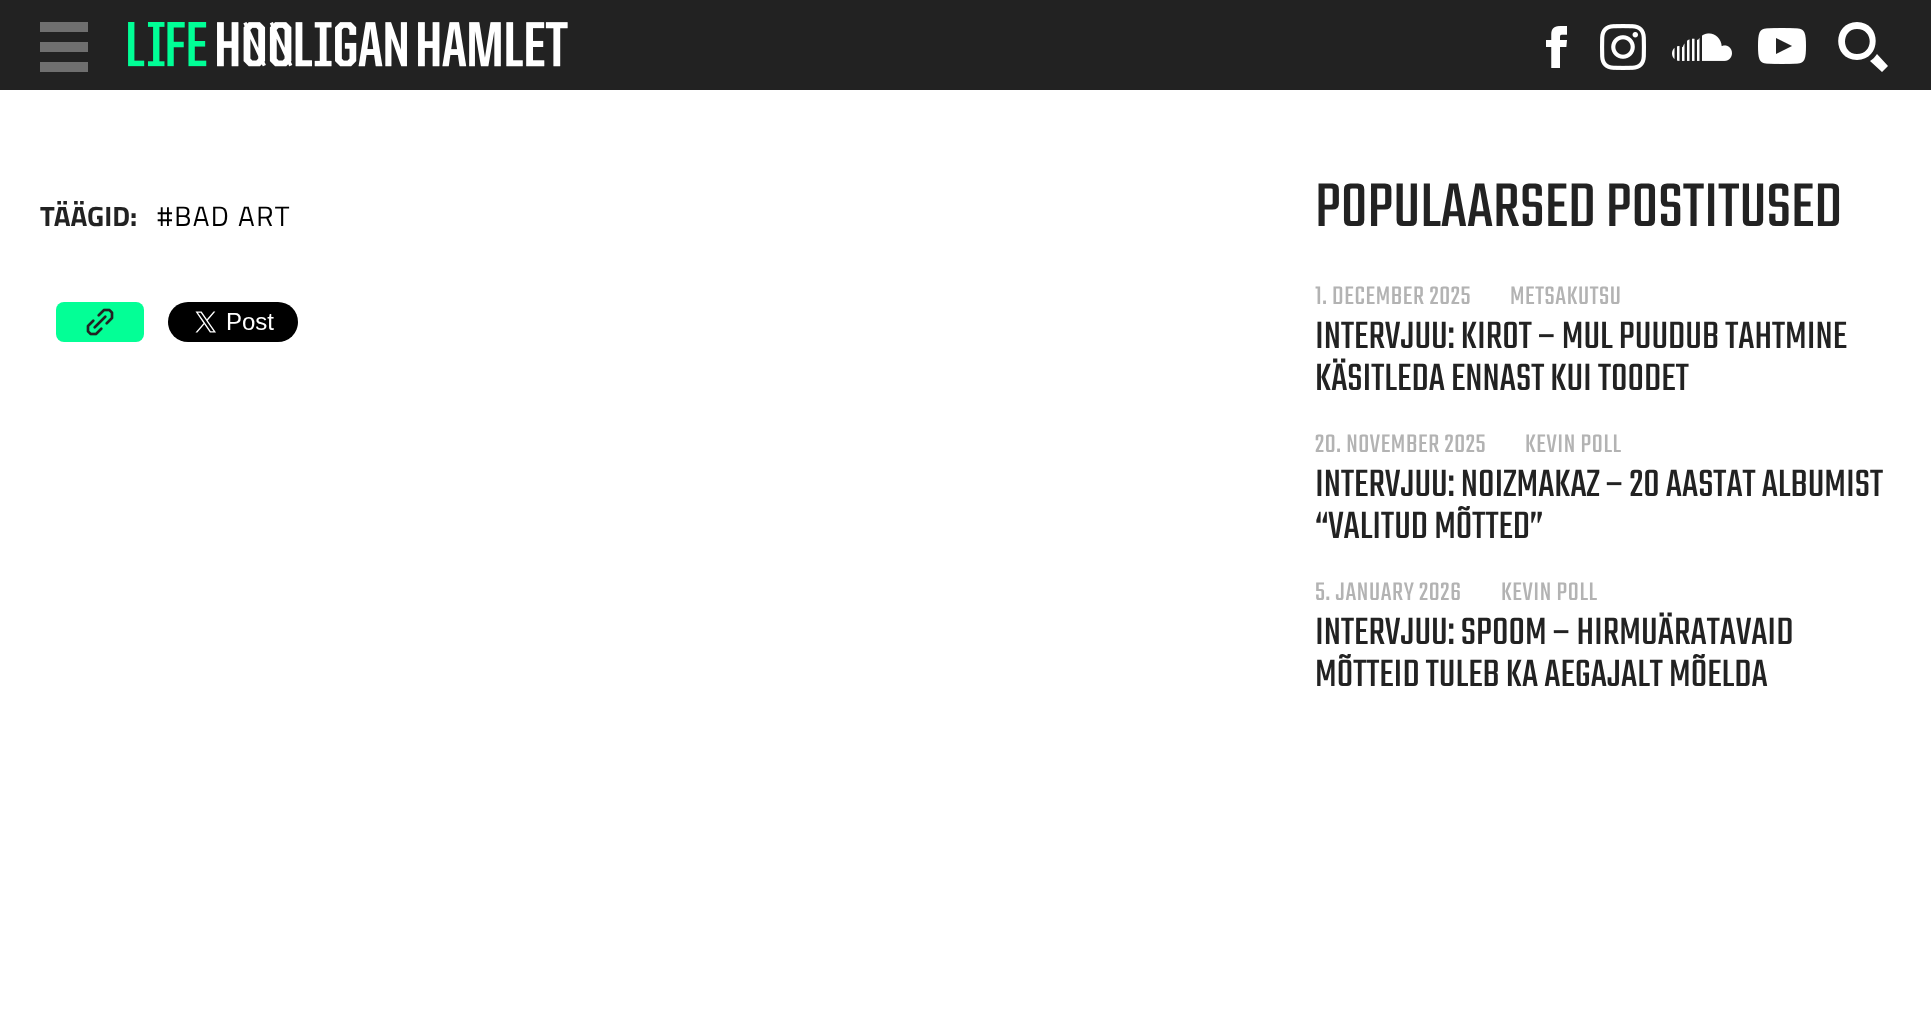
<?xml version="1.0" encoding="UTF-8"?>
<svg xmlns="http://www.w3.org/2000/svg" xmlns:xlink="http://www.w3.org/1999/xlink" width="1931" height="1031">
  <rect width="100%" height="100%" fill="#ffffff" />
  <rect width="1931" height="90" fill="#222222" />
  <rect x="40" y="22" width="48" height="10" fill="#6f6f6f" />
  <rect x="40" y="42" width="48" height="10" fill="#6f6f6f" />
  <rect x="40" y="62" width="48" height="10" fill="#6f6f6f" />
  <image x="128" y="22" width="440" height="45" xlink:href="image1.png" />
  <image x="1546" y="26" width="21" height="42" xlink:href="image2.png" />
  <image x="1600" y="24" width="46" height="46" xlink:href="image3.png" />
  <image x="1672" y="33" width="60" height="28" xlink:href="image4.png" />
  <image x="1758" y="28" width="48" height="36" xlink:href="image5.png" />
  <path d="M 1857 60 c -25 0 -25 -38 0 -38 c 25 0 25 38 0 38 z m 0 -31 c -16 0 -16 25 0 25 c 17 0 17 -25 0 -25 z m 20 25 c -2 3 -4 5 -7 7 l 12 11 l 6 -6 z" fill="#ffffff" fill-rule="evenodd" />
  <rect x="56" y="302" width="88" height="40" rx="8" fill="#03ff96" />
  <image x="86" y="308" width="28" height="28" xlink:href="image6.png" />
  <image x="168" y="302" width="130" height="40" xlink:href="image7.png" />
  <text x="40" y="226" style="font-family: Titillium Web; font-size: 28px; font-weight: bold; fill: #222222">TÄÄGID:</text>
  <text x="157" y="226" style="font-family: Titillium Web; font-size: 28px; letter-spacing: 1.5px; fill: #000000">#BAD ART</text>
  <text x="1315" y="226" style="font-family: Teko; font-size: 68px; font-weight: 300; fill: #222222">POPULAARSED POSTITUSED</text>
  <text x="1315" y="304" style="font-family: Teko; font-size: 28px; font-weight: 300; letter-spacing: 0.6px; fill: #b3b3b3">1. DECEMBER 2025</text>
  <text x="1510" y="304" style="font-family: Teko; font-size: 28px; font-weight: 300; letter-spacing: 0.6px; fill: #b3b3b3">METSAKUTSU</text>
  <text x="1315" y="348" style="font-family: Teko; font-size: 42px; font-weight: 300; fill: #222222">INTERVJUU: KIROT – MUL PUUDUB TAHTMINE</text>
  <text x="1315" y="390" style="font-family: Teko; font-size: 42px; font-weight: 300; fill: #222222">KÄSITLEDA ENNAST KUI TOODET</text>
  <text x="1315" y="452" style="font-family: Teko; font-size: 28px; font-weight: 300; letter-spacing: 0.6px; fill: #b3b3b3">20. NOVEMBER 2025</text>
  <text x="1525" y="452" style="font-family: Teko; font-size: 28px; font-weight: 300; letter-spacing: 0.6px; fill: #b3b3b3">KEVIN POLL</text>
  <text x="1315" y="496" style="font-family: Teko; font-size: 42px; font-weight: 300; fill: #222222">INTERVJUU: NOIZMAKAZ – 20 AASTAT ALBUMIST</text>
  <text x="1315" y="538" style="font-family: Teko; font-size: 42px; font-weight: 300; fill: #222222">“VALITUD MÕTTED”</text>
  <text x="1315" y="600" style="font-family: Teko; font-size: 28px; font-weight: 300; letter-spacing: 0.6px; fill: #b3b3b3">5. JANUARY 2026</text>
  <text x="1501" y="600" style="font-family: Teko; font-size: 28px; font-weight: 300; letter-spacing: 0.6px; fill: #b3b3b3">KEVIN POLL</text>
  <text x="1315" y="644" style="font-family: Teko; font-size: 42px; font-weight: 300; fill: #222222">INTERVJUU: SPOOM – HIRMUÄRATAVAID</text>
  <text x="1315" y="686" style="font-family: Teko; font-size: 42px; font-weight: 300; fill: #222222">MÕTTEID TULEB KA AEGAJALT MÕELDA</text>
</svg>
